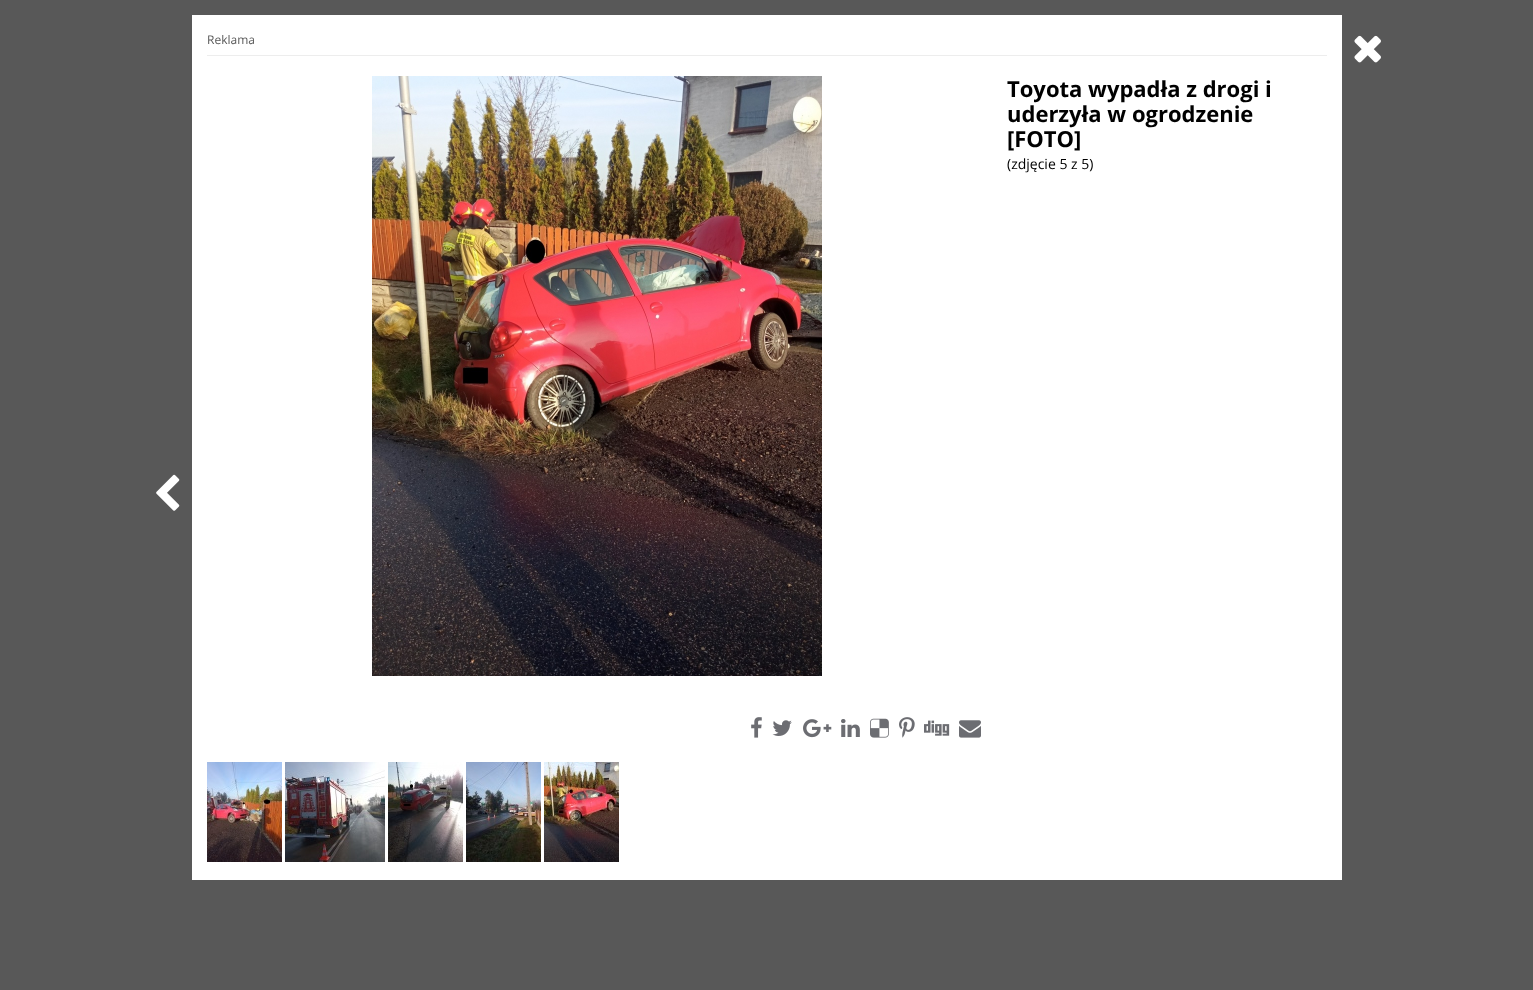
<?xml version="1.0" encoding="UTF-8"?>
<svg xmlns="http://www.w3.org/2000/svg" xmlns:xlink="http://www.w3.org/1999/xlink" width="1533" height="990">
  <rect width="100%" height="100%" fill="#585858" />
  <rect x="192" y="15" width="1150" height="865" fill="#ffffff" />
  <rect x="207" y="55" width="1120" height="1" fill="#ededed" />
  <image x="1354" y="35" width="27" height="28" xlink:href="image1.png" />
  <image x="372" y="76" width="450" height="600" xlink:href="image2.png" />
  <image x="751" y="717" width="11" height="21" xlink:href="image3.png" />
  <image x="772" y="720" width="20" height="16" xlink:href="image4.png" />
  <image x="803" y="719" width="29" height="19" xlink:href="image5.png" />
  <image x="841" y="719" width="19" height="18" xlink:href="image6.png" />
  <image x="870" y="718" width="19" height="20" xlink:href="image7.png" />
  <image x="899" y="717" width="16" height="21" xlink:href="image8.png" />
  <image x="924" y="720" width="26" height="16" xlink:href="image9.png" />
  <image x="959" y="720" width="22" height="18" xlink:href="image10.png" />
  <image x="207" y="762" width="75" height="100" xlink:href="image11.png" />
  <image x="285" y="762" width="100" height="100" xlink:href="image12.png" />
  <image x="388" y="762" width="75" height="100" xlink:href="image13.png" />
  <image x="466" y="762" width="75" height="100" xlink:href="image14.png" />
  <image x="544" y="762" width="75" height="100" xlink:href="image15.png" />
  <image x="156" y="474" width="24" height="37" xlink:href="image16.png" />
  <text x="207" y="44" style="font-family: Open Sans; font-size: 12px; fill: #595959">Reklama</text>
  <text x="1007" y="97" style="font-family: Open Sans; font-size: 22px; font-weight: bold; fill: #000000">Toyota wypadła z drogi i</text>
  <text x="1007" y="122" style="font-family: Open Sans; font-size: 22px; font-weight: bold; fill: #000000">uderzyła w ogrodzenie</text>
  <text x="1007" y="147" style="font-family: Open Sans; font-size: 22px; font-weight: bold; fill: #000000">[FOTO]</text>
  <text x="1007" y="169" style="font-family: Open Sans; font-size: 14px; fill: #000000">(zdjęcie 5 z 5)</text>
</svg>
